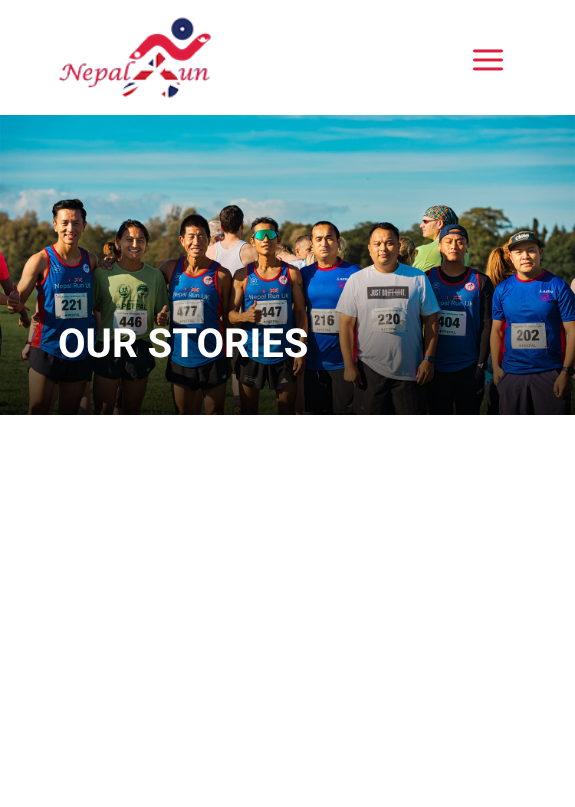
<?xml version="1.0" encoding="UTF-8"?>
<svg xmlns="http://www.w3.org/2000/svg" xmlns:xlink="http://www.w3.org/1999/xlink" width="575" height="807">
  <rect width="100%" height="100%" fill="#ffffff" />
  <image x="59" y="17" width="152" height="81" xlink:href="image1.png" />
  <image x="473" y="49" width="30" height="22" xlink:href="image2.png" />
  <image x="0" y="115" width="575" height="300" xlink:href="image3.png" />
  <text x="58" y="357" style="font-family: Roboto; font-size: 40px; font-weight: bold; fill: #ffffff">OUR STORIES</text>
</svg>
